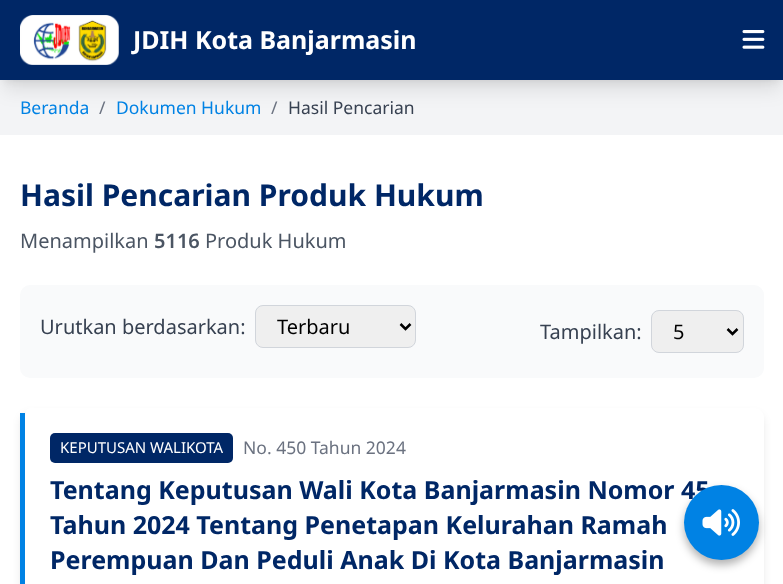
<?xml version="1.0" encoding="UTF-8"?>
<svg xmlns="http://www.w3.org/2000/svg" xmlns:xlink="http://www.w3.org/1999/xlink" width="783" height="584">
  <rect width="100%" height="100%" fill="#ffffff" />
  <rect y="80" width="783" height="55" fill="#f3f4f6" />
  <rect x="5" y="10" width="774" height="70" fill="#000000" fill-opacity="0.1" filter="blur(4px)" />
  <rect x="4" y="16" width="776" height="73" fill="#000000" fill-opacity="0.1" filter="blur(9.5px)" />
  <rect width="783" height="80" fill="#002766" />
  <image x="20" y="15" width="99" height="50" xlink:href="image1.png" />
  <image x="742" y="30" width="23" height="19" xlink:href="image2.png" />
  <rect x="20" y="285" width="744" height="93" rx="10" fill="#f9fafb" />
  <rect x="255.5" y="305.5" width="160" height="42" rx="7.5" fill="#efefef" stroke="#d1d5db" />
  <path d="M 400.5 324 l 5 5 l 5 -5" fill="none" stroke="#000000" stroke-width="2.5" />
  <rect x="651.5" y="310.5" width="92" height="42" rx="7.5" fill="#efefef" stroke="#d1d5db" />
  <path d="M 727.5 329 l 5 5 l 5 -5" fill="none" stroke="#000000" stroke-width="2.5" />
  <rect x="21" y="414" width="742" height="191" rx="9" fill="#000000" fill-opacity="0.1" filter="blur(4px)" />
  <path d="M 30 408 h 724 c 5 0 10 4 10 10 v 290 c 0 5 -5 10 -10 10 h -724 c -3 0 -5 -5 -5 -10 v -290 c 0 -6 2 -10 5 -10 z" fill="#ffffff" />
  <rect x="20" y="413" width="5" height="171" fill="#0082e4" />
  <rect x="50" y="433" width="183" height="30" rx="5" fill="#002766" />
  <rect x="684" y="490" width="75" height="75" rx="37.5" fill="#000000" fill-opacity="0.3" filter="blur(4px)" />
  <text x="133" y="49" style="font-family: Noto Sans; font-size: 25px; font-weight: bold; fill: #ffffff">JDIH Kota Banjarmasin</text>
  <text x="20" y="114" style="font-family: Noto Sans; font-size: 17.5px; fill: #0082e4">Beranda</text>
  <text x="99" y="114" style="font-family: Noto Sans; font-size: 17.5px; fill: #6b7280">/</text>
  <text x="116" y="114" style="font-family: Noto Sans; font-size: 17.5px; fill: #0082e4">Dokumen Hukum</text>
  <text x="271" y="114" style="font-family: Noto Sans; font-size: 17.5px; fill: #6b7280">/</text>
  <text x="288" y="114" style="font-family: Noto Sans; font-size: 17.5px; fill: #374151">Hasil Pencarian</text>
  <text x="20" y="206" style="font-family: Noto Sans; font-size: 30px; font-weight: bold; fill: #002766">Hasil Pencarian Produk Hukum</text>
  <text x="20" y="248" style="font-family: Noto Sans; font-size: 20px; fill: #4b5563">Menampilkan</text>
  <text x="154" y="248" style="font-family: Noto Sans; font-size: 20px; font-weight: 600; fill: #4b5563">5116</text>
  <text x="205" y="248" style="font-family: Noto Sans; font-size: 20px; fill: #4b5563">Produk Hukum</text>
  <text x="40" y="334" style="font-family: Noto Sans; font-size: 20px; fill: #374151">Urutkan berdasarkan:</text>
  <text x="277" y="334" style="font-family: Noto Sans; font-size: 20px; fill: #000000">Terbaru</text>
  <text x="540" y="339" style="font-family: Noto Sans; font-size: 20px; fill: #374151">Tampilkan:</text>
  <text x="673" y="339" style="font-family: Noto Sans; font-size: 20px; fill: #000000">5</text>
  <text x="60" y="453" style="font-family: Noto Sans; font-size: 15px; fill: #ffffff">KEPUTUSAN WALIKOTA</text>
  <text x="243" y="454" style="font-family: Noto Sans; font-size: 17.5px; fill: #6b7280">No. 450 Tahun 2024</text>
  <text x="50" y="499" style="font-family: Noto Sans; font-size: 25px; font-weight: bold; fill: #002766">Tentang Keputusan Wali Kota Banjarmasin Nomor 45</text>
  <text x="50" y="534" style="font-family: Noto Sans; font-size: 25px; font-weight: bold; fill: #002766">Tahun 2024 Tentang Penetapan Kelurahan Ramah</text>
  <text x="50" y="569" style="font-family: Noto Sans; font-size: 25px; font-weight: bold; fill: #002766">Perempuan Dan Peduli Anak Di Kota Banjarmasin</text>
  <circle cx="721.5" cy="522.5" r="37.5" fill="#0082e4" />
  <image x="702" y="509" width="38" height="27" xlink:href="image3.png" />
</svg>
